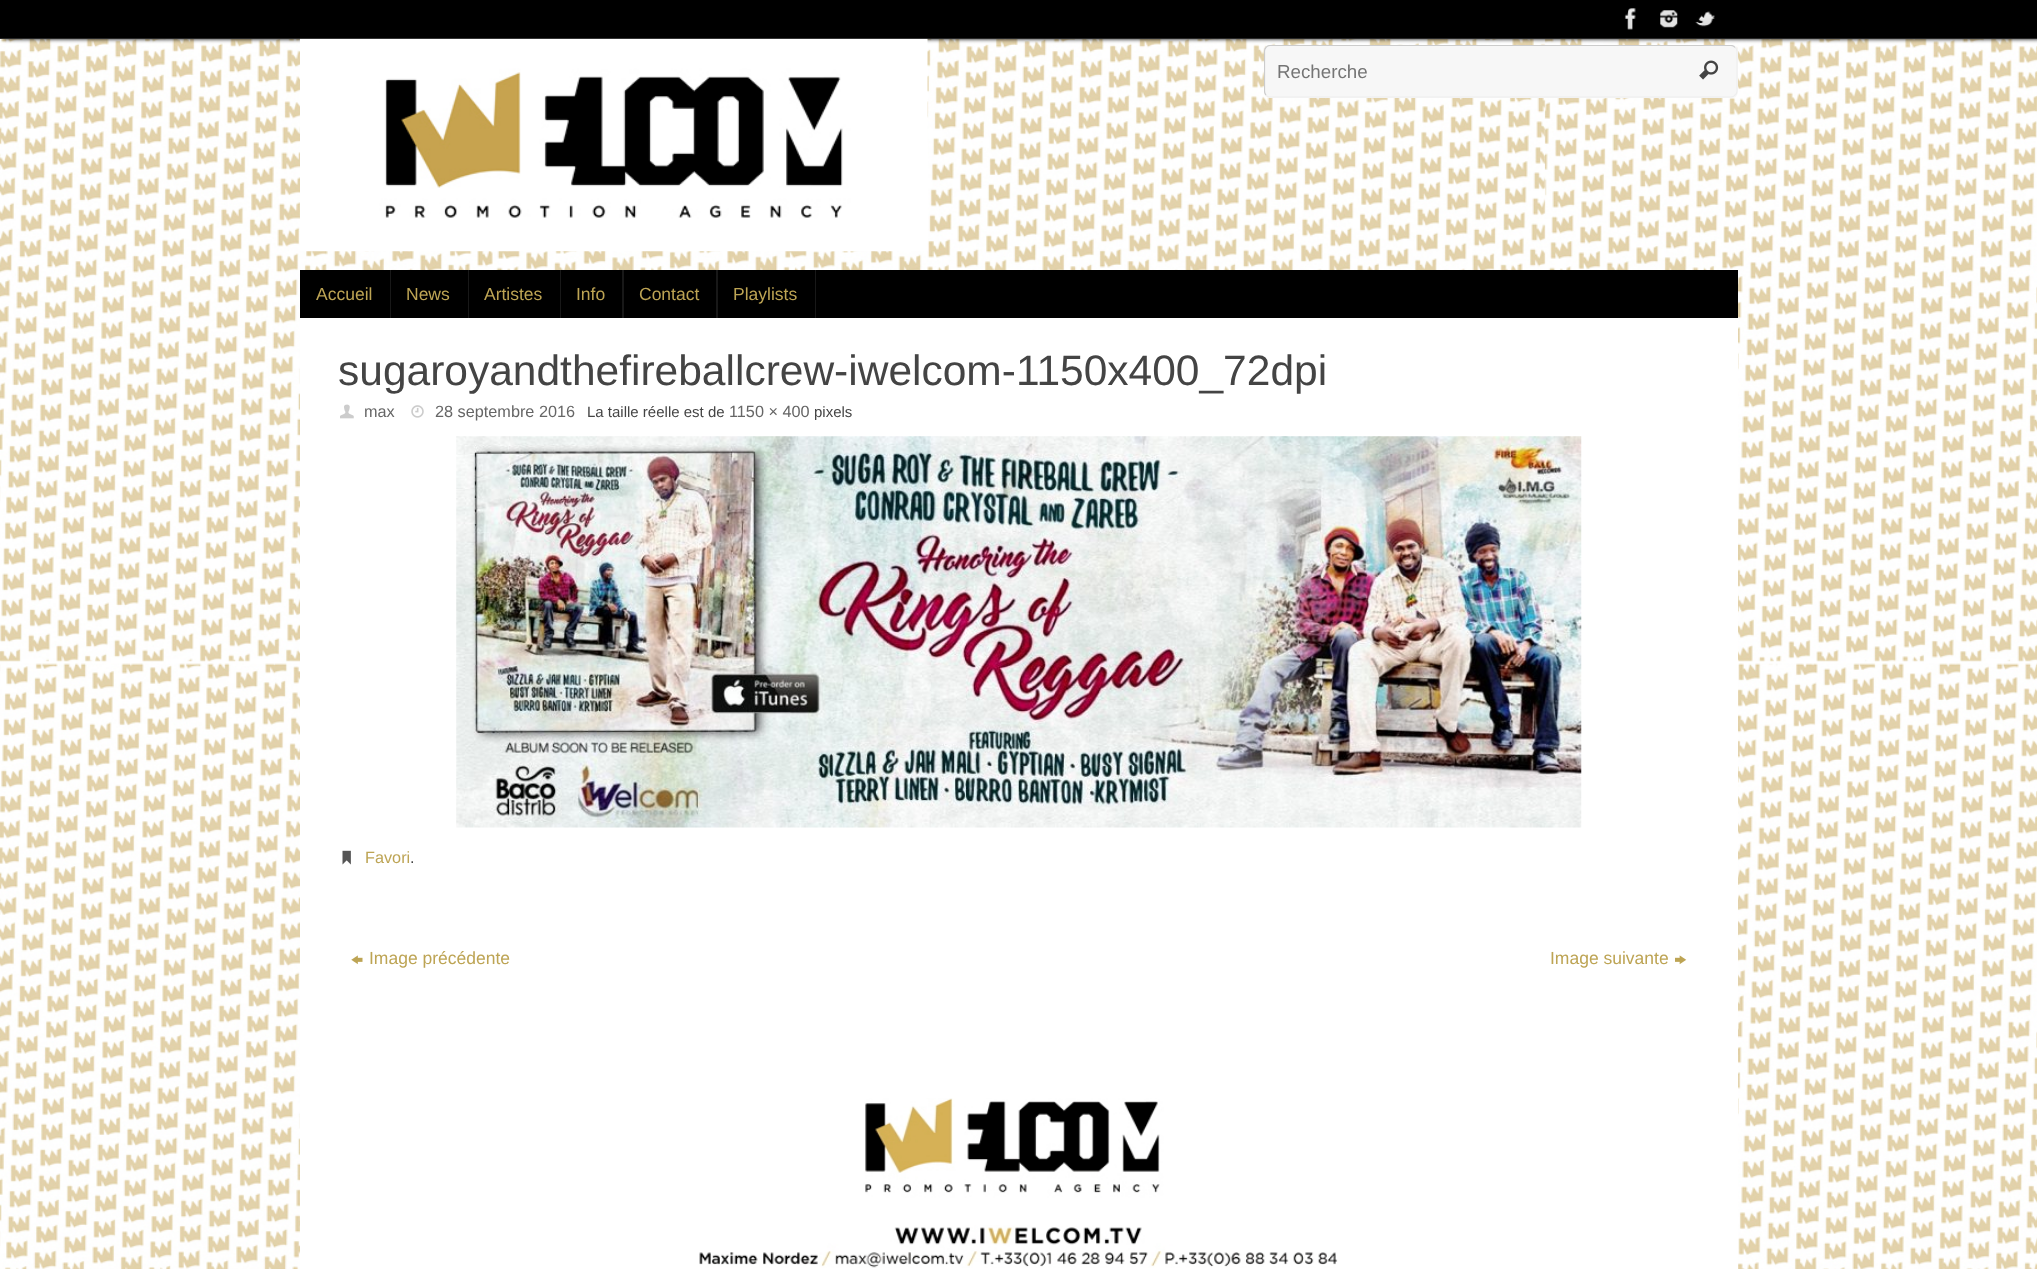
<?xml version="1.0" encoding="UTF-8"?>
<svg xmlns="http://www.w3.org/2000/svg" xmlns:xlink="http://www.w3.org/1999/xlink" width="2037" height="1269">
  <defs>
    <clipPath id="clip1"><rect x="1264" y="45" width="474" height="53" /></clipPath>
  </defs>
  <rect width="100%" height="100%" fill="#ffffff" />
  <image x="0" y="39" width="2037" height="1230" xlink:href="image1.png" />
  <rect x="4" width="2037" height="39" fill="#000000" filter="blur(2px)" />
  <rect width="2037" height="38" fill="#000000" />
  <rect y="38" width="2037" height="1" fill="#282828" />
  <image x="1624" y="8" width="12" height="22" xlink:href="image2.png" />
  <image x="1660" y="10" width="18" height="18" xlink:href="image3.png" />
  <image x="1695" y="11" width="20" height="16" xlink:href="image4.png" />
  <image x="300" y="38" width="628" height="214" xlink:href="image5.png" />
  <rect x="1264" y="45" width="474" height="53" rx="6" fill="#f7f7f7" />
  <path d="M 1735 47.5 c 1.5 1 2 2.5 2 3.5 v 40 c 0 1.5 -0.5 3 -2 4 c -1 1.5 -2.5 2 -4 2 h -461 c -1.5 0 -3 -0.5 -4 -2" fill="none" stroke="#eeeeee" stroke-width="1.2" />
  <g clip-path="url(#clip1)">
    <path d="M 1266 95 c -1 -1 -1.5 -2.5 -1.5 -4 v -40 c 0 -1 0.5 -2.5 1.5 -3.5 c 1 -1.5 2.5 -2 4 -2 h 461 c 1.5 0 3 0.5 4 2" fill="none" stroke="#cccccc" stroke-width="1.2" />
  </g>
  <image x="1699" y="60" width="20" height="20" xlink:href="image6.png" />
  <rect x="300" y="270" width="1438" height="48" fill="#000000" />
  <path d="M 301 318 h 90 v -48 h -1 v 48 z" fill="#181818" />
  <path d="M 391 318 h 78 v -48 h -1 v 48 z" fill="#181818" />
  <path d="M 469 318 h 92 v -48 h -1 v 48 z" fill="#181818" />
  <path d="M 561 318 h 63 v -48 h -2 v 48 z" fill="#181818" />
  <path d="M 624 318 h 94 v -48 h -2 v 48 z" fill="#181818" />
  <path d="M 718 318 h 98 v -48 h -1 v 48 z" fill="#181818" />
  <rect x="300" y="318" width="1438" height="951" fill="#ffffff" />
  <image x="340" y="404" width="14" height="15" xlink:href="image7.png" />
  <image x="411" y="405" width="13" height="13" xlink:href="image8.png" />
  <image x="456" y="436" width="1126" height="392" xlink:href="image9.png" />
  <image x="342" y="850" width="9" height="15" xlink:href="image10.png" />
  <image x="351" y="955" width="12" height="10" xlink:href="image11.png" />
  <image x="1675" y="955" width="12" height="10" xlink:href="image12.png" />
  <image x="699" y="1098" width="639" height="170" xlink:href="image13.png" />
  <text x="1277" y="78" style="font-family: Liberation Sans; font-size: 18.75px; fill: #757575">Recherche</text>
  <text x="316" y="300" style="font-family: Liberation Sans; font-size: 17.5px; fill: #bda454">Accueil</text>
  <text x="406" y="300" style="font-family: Liberation Sans; font-size: 17.5px; fill: #bda454">News</text>
  <text x="484" y="300" style="font-family: Liberation Sans; font-size: 17.5px; fill: #bda454">Artistes</text>
  <text x="576" y="300" style="font-family: Liberation Sans; font-size: 17.5px; fill: #bda454">Info</text>
  <text x="639" y="300" style="font-family: Liberation Sans; font-size: 17.5px; fill: #bda454">Contact</text>
  <text x="733" y="300" style="font-family: Liberation Sans; font-size: 17.5px; fill: #bda454">Playlists</text>
  <text x="338" y="385" style="font-family: Liberation Sans; font-size: 42.5px; fill: #444444">sugaroyandthefireballcrew-iwelcom-1150x400_72dpi</text>
  <text x="364" y="417" style="font-family: Liberation Sans; font-size: 16.25px; fill: #666666">max</text>
  <text x="435" y="417" style="font-family: Liberation Sans; font-size: 16.25px; fill: #666666">28 septembre 2016</text>
  <text x="587" y="417" style="font-family: Liberation Sans; font-size: 15px; fill: #444444">La taille réelle est de</text>
  <text x="729" y="417" style="font-family: Liberation Sans; font-size: 16.25px; fill: #666666">1150 × 400</text>
  <text x="814" y="417" style="font-family: Liberation Sans; font-size: 15px; fill: #444444">pixels</text>
  <text x="365" y="863" style="font-family: Liberation Sans; font-size: 16.25px; fill: #bda454">Favori</text>
  <text x="410" y="863" style="font-family: Liberation Sans; font-size: 16.25px; fill: #444444">.</text>
  <text x="369" y="964" style="font-family: Liberation Sans; font-size: 17.5px; fill: #bda454">Image précédente</text>
  <text x="1550" y="964" style="font-family: Liberation Sans; font-size: 17.5px; fill: #bda454">Image suivante</text>
</svg>
